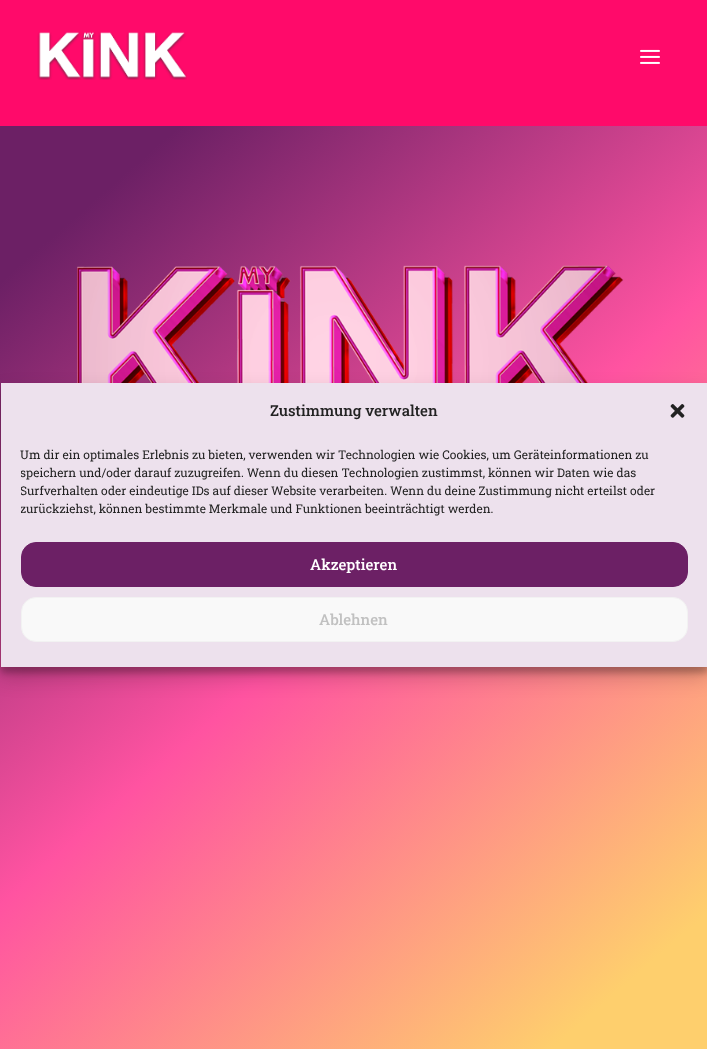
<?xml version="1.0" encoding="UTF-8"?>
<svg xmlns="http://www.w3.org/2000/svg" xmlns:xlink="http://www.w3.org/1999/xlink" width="707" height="1049">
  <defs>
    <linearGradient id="g1" gradientUnits="userSpaceOnUse" x1="-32" y1="154" x2="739" y2="1042"><stop offset="0.1" stop-color="#6c2065" /><stop offset="0.5" stop-color="#ff53a1" /><stop offset="0.9" stop-color="#fecf6d" /></linearGradient>
    <clipPath id="clip1"><rect x="21" y="445" width="667" height="77" /></clipPath>
  </defs>
  <rect width="100%" height="100%" fill="#ffffff" />
  <rect width="707" height="126" fill="#ff0a6a" />
  <image x="37" y="32" width="150" height="48" xlink:href="image1.png" />
  <image x="640" y="49" width="20" height="15" xlink:href="image2.png" />
  <rect y="126" width="707" height="923" fill="url(#g1)" />
  <image x="77" y="265" width="547" height="118" xlink:href="image3.png" />
  <rect x="1" y="389" width="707" height="284" fill="#000000" fill-opacity="0.23" filter="blur(3px)" />
  <rect x="1" y="393" width="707" height="284" fill="#000000" fill-opacity="0.19" filter="blur(10px)" />
  <rect x="1" y="383" width="706" height="284" fill="#ede1ed" />
  <image x="670" y="404" width="15" height="14" xlink:href="image4.png" />
  <rect x="21.5" y="542.5" width="666" height="44" rx="14.5" fill="#6c2065" stroke="#6c2065" />
  <rect x="21.5" y="597.5" width="666" height="44" rx="14.5" fill="#f9f9f9" stroke="#f2f2f2" />
  <text x="270" y="416" style="font-family: Roboto Slab; font-size: 15px; font-weight: 500; fill: #222222">Zustimmung verwalten</text>
  <text x="20" y="459" style="font-family: Roboto Slab; font-size: 12px; fill: #222222">Um dir ein optimales Erlebnis zu bieten, verwenden wir Technologien wie Cookies, um Geräteinformationen zu</text>
  <g clip-path="url(#clip1)">
    <text x="20" y="477" style="font-family: Roboto Slab; font-size: 12px; fill: #222222">speichern und/oder darauf zuzugreifen. Wenn du diesen Technologien zustimmst, können wir Daten wie das</text>
    <text x="20" y="495" style="font-family: Roboto Slab; font-size: 12px; fill: #222222">Surfverhalten oder eindeutige IDs auf dieser Website verarbeiten. Wenn du deine Zustimmung nicht erteilst oder</text>
    <text x="20" y="513" style="font-family: Roboto Slab; font-size: 12px; fill: #222222">zurückziehst, können bestimmte Merkmale und Funktionen beeinträchtigt werden.</text>
  </g>
  <text x="310" y="570" style="font-family: Roboto Slab; font-size: 15px; font-weight: 500; fill: #ffffff">Akzeptieren</text>
  <text x="319" y="625" style="font-family: Roboto Slab; font-size: 15px; font-weight: 500; fill: #c1c1c1">Ablehnen</text>
</svg>
